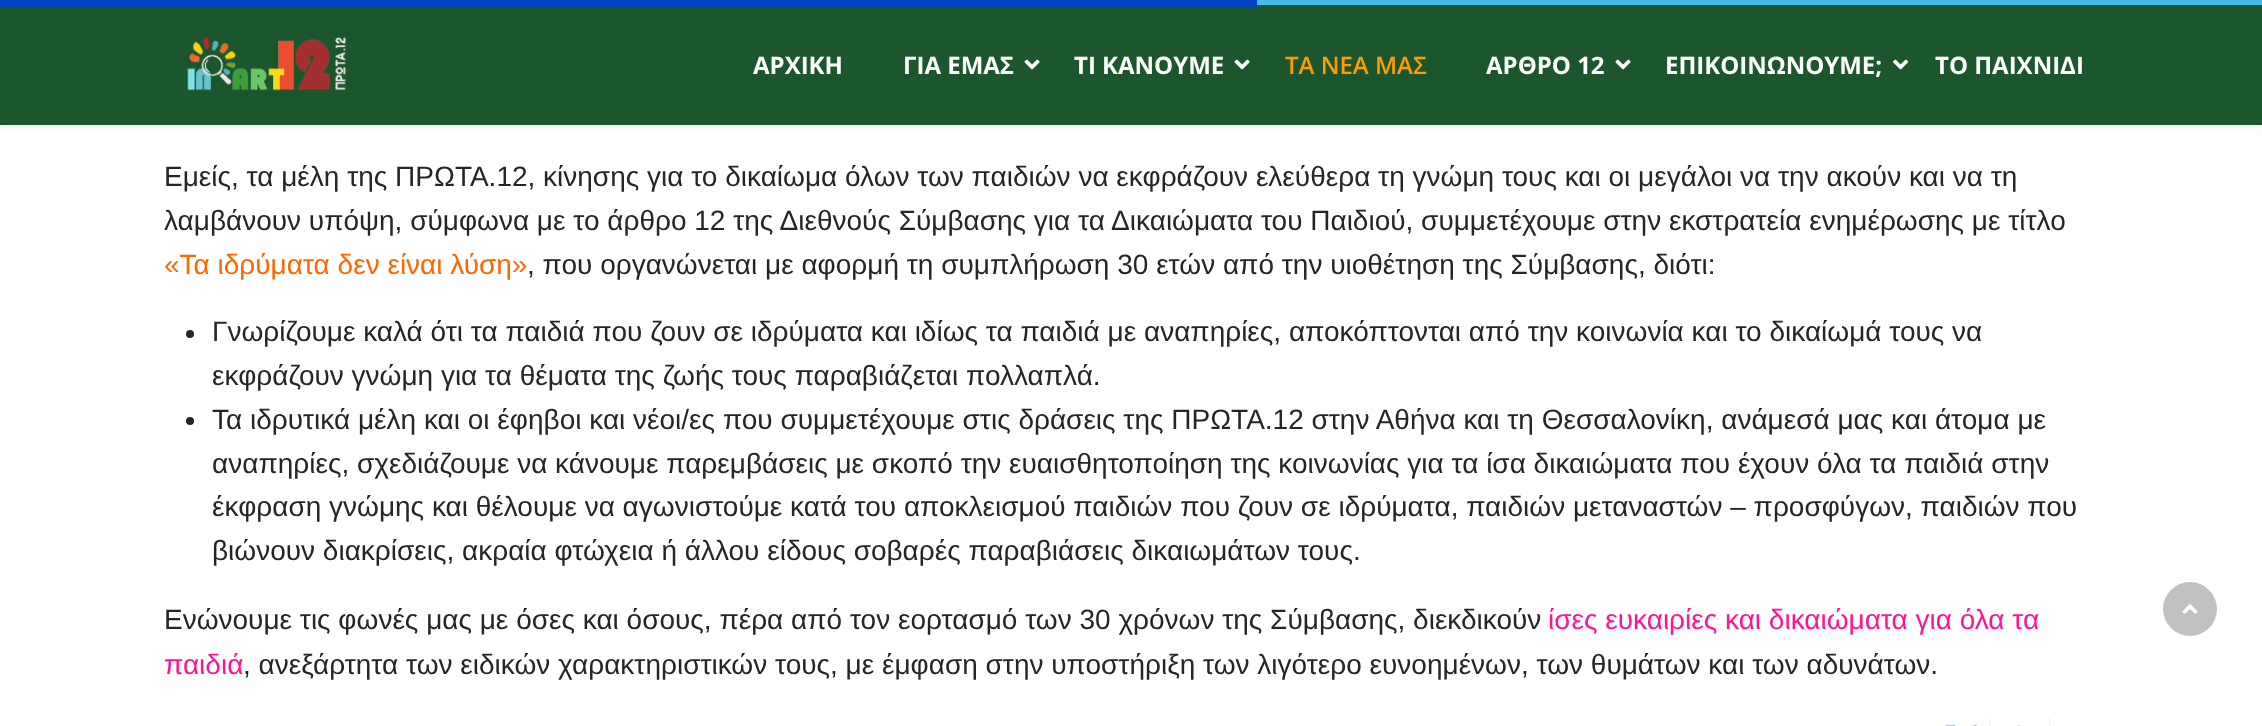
<?xml version="1.0" encoding="UTF-8"?>
<svg xmlns="http://www.w3.org/2000/svg" xmlns:xlink="http://www.w3.org/1999/xlink" width="2262" height="726">
  <rect width="100%" height="100%" fill="#ffffff" />
  <rect width="2262" height="125" fill="#000000" fill-opacity="0.1" filter="blur(3px)" />
  <rect y="5" width="2262" height="120" fill="#1c562d" />
  <rect width="1257" height="8" fill="#0345bf" />
  <rect x="1257" width="1005" height="5" fill="#44baeb" />
  <image x="187" y="37" width="159" height="54" xlink:href="image1.png" />
  <image x="1024" y="59" width="16" height="11" xlink:href="image2.png" />
  <image x="1234" y="59" width="16" height="11" xlink:href="image2.png" />
  <image x="1615" y="59" width="16" height="11" xlink:href="image2.png" />
  <image x="1893" y="59" width="15" height="11" xlink:href="image3.png" />
  <circle cx="190" cy="334" r="4" fill="#252525" />
  <circle cx="190" cy="421" r="4" fill="#252525" />
  <image x="1945" y="725" width="32" height="1" xlink:href="image4.png" />
  <path d="M 1989 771 v -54 l 1 1 v 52 z" fill="#f0f0f0" />
  <image x="2017" y="725" width="4" height="1" xlink:href="image5.png" />
  <path d="M 2050 718 l -1 -1 v 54 l 1 -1 z" fill="#f0f0f0" />
  <circle cx="2190" cy="609" r="27" fill="#c1c1c1" />
  <image x="2182" y="604" width="16" height="10" xlink:href="image6.png" />
  <text x="753" y="74" style="font-family: Open Sans; font-size: 24px; font-weight: bold; fill: #ffffff">ΑΡΧΙΚΗ</text>
  <text x="903" y="74" style="font-family: Open Sans; font-size: 24px; font-weight: bold; fill: #ffffff">ΓΙΑ ΕΜΑΣ</text>
  <text x="1074" y="74" style="font-family: Open Sans; font-size: 24px; font-weight: bold; fill: #ffffff">ΤΙ ΚΑΝΟΥΜΕ</text>
  <text x="1285" y="74" style="font-family: Open Sans; font-size: 24px; font-weight: 600; fill: #ff9b05">ΤΑ ΝΕΑ ΜΑΣ</text>
  <text x="1486" y="74" style="font-family: Open Sans; font-size: 24px; font-weight: bold; fill: #ffffff">ΑΡΘΡΟ 12</text>
  <text x="1665" y="74" style="font-family: Open Sans; font-size: 24px; font-weight: bold; fill: #ffffff">ΕΠΙΚΟΙΝΩΝΟΥΜΕ;</text>
  <text x="1935" y="74" style="font-family: Open Sans; font-size: 24px; font-weight: bold; fill: #ffffff">ΤΟ ΠΑΙΧΝΙΔΙ</text>
  <text x="164" y="186" style="font-family: Liberation Sans; font-size: 28px; fill: #252525">Εμείς, τα μέλη της ΠΡΩΤΑ.12, κίνησης για το δικαίωμα όλων των παιδιών να εκφράζουν ελεύθερα τη γνώμη τους και οι μεγάλοι να την ακούν και να τη</text>
  <text x="164" y="230" style="font-family: Liberation Sans; font-size: 28px; fill: #252525">λαμβάνουν υπόψη, σύμφωνα με το άρθρο 12 της Διεθνούς Σύμβασης για τα Δικαιώματα του Παιδιού, συμμετέχουμε στην εκστρατεία ενημέρωσης με τίτλο</text>
  <text x="164" y="274" style="font-family: Liberation Sans; font-size: 28px; fill: #ff6600">«Τα ιδρύματα δεν είναι λύση»</text>
  <text x="527" y="274" style="font-family: Liberation Sans; font-size: 28px; fill: #252525">, που οργανώνεται με αφορμή τη συμπλήρωση 30 ετών από την υιοθέτηση της Σύμβασης, διότι:</text>
  <text x="212" y="341" style="font-family: Liberation Sans; font-size: 28px; fill: #252525">Γνωρίζουμε καλά ότι τα παιδιά που ζουν σε ιδρύματα και ιδίως τα παιδιά με αναπηρίες, αποκόπτονται από την κοινωνία και το δικαίωμά τους να</text>
  <text x="212" y="385" style="font-family: Liberation Sans; font-size: 28px; fill: #252525">εκφράζουν γνώμη για τα θέματα της ζωής τους παραβιάζεται πολλαπλά.</text>
  <text x="212" y="429" style="font-family: Liberation Sans; font-size: 28px; fill: #252525">Τα ιδρυτικά μέλη και οι έφηβοι και νέοι/ες που συμμετέχουμε στις δράσεις της ΠΡΩΤΑ.12 στην Αθήνα και τη Θεσσαλονίκη, ανάμεσά μας και άτομα με</text>
  <text x="212" y="473" style="font-family: Liberation Sans; font-size: 28px; fill: #252525">αναπηρίες, σχεδιάζουμε να κάνουμε παρεμβάσεις με σκοπό την ευαισθητοποίηση της κοινωνίας για τα ίσα δικαιώματα που έχουν όλα τα παιδιά στην</text>
  <text x="212" y="516" style="font-family: Liberation Sans; font-size: 28px; fill: #252525">έκφραση γνώμης και θέλουμε να αγωνιστούμε κατά του αποκλεισμού παιδιών που ζουν σε ιδρύματα, παιδιών μεταναστών – προσφύγων, παιδιών που</text>
  <text x="212" y="560" style="font-family: Liberation Sans; font-size: 28px; fill: #252525">βιώνουν διακρίσεις, ακραία φτώχεια ή άλλου είδους σοβαρές παραβιάσεις δικαιωμάτων τους.</text>
  <text x="164" y="629" style="font-family: Liberation Sans; font-size: 28px; fill: #252525">Ενώνουμε τις φωνές μας με όσες και όσους, πέρα από τον εορτασμό των 30 χρόνων της Σύμβασης, διεκδικούν</text>
  <text x="1548" y="629" style="font-family: Liberation Sans; font-size: 28px; fill: #ff1493">ίσες ευκαιρίες και δικαιώματα για όλα τα</text>
  <text x="164" y="674" style="font-family: Liberation Sans; font-size: 28px; fill: #ff1493">παιδιά</text>
  <text x="243" y="674" style="font-family: Liberation Sans; font-size: 28px; fill: #252525">, ανεξάρτητα των ειδικών χαρακτηριστικών τους, με έμφαση στην υποστήριξη των λιγότερο ευνοημένων, των θυμάτων και των αδυνάτων.</text>
</svg>
